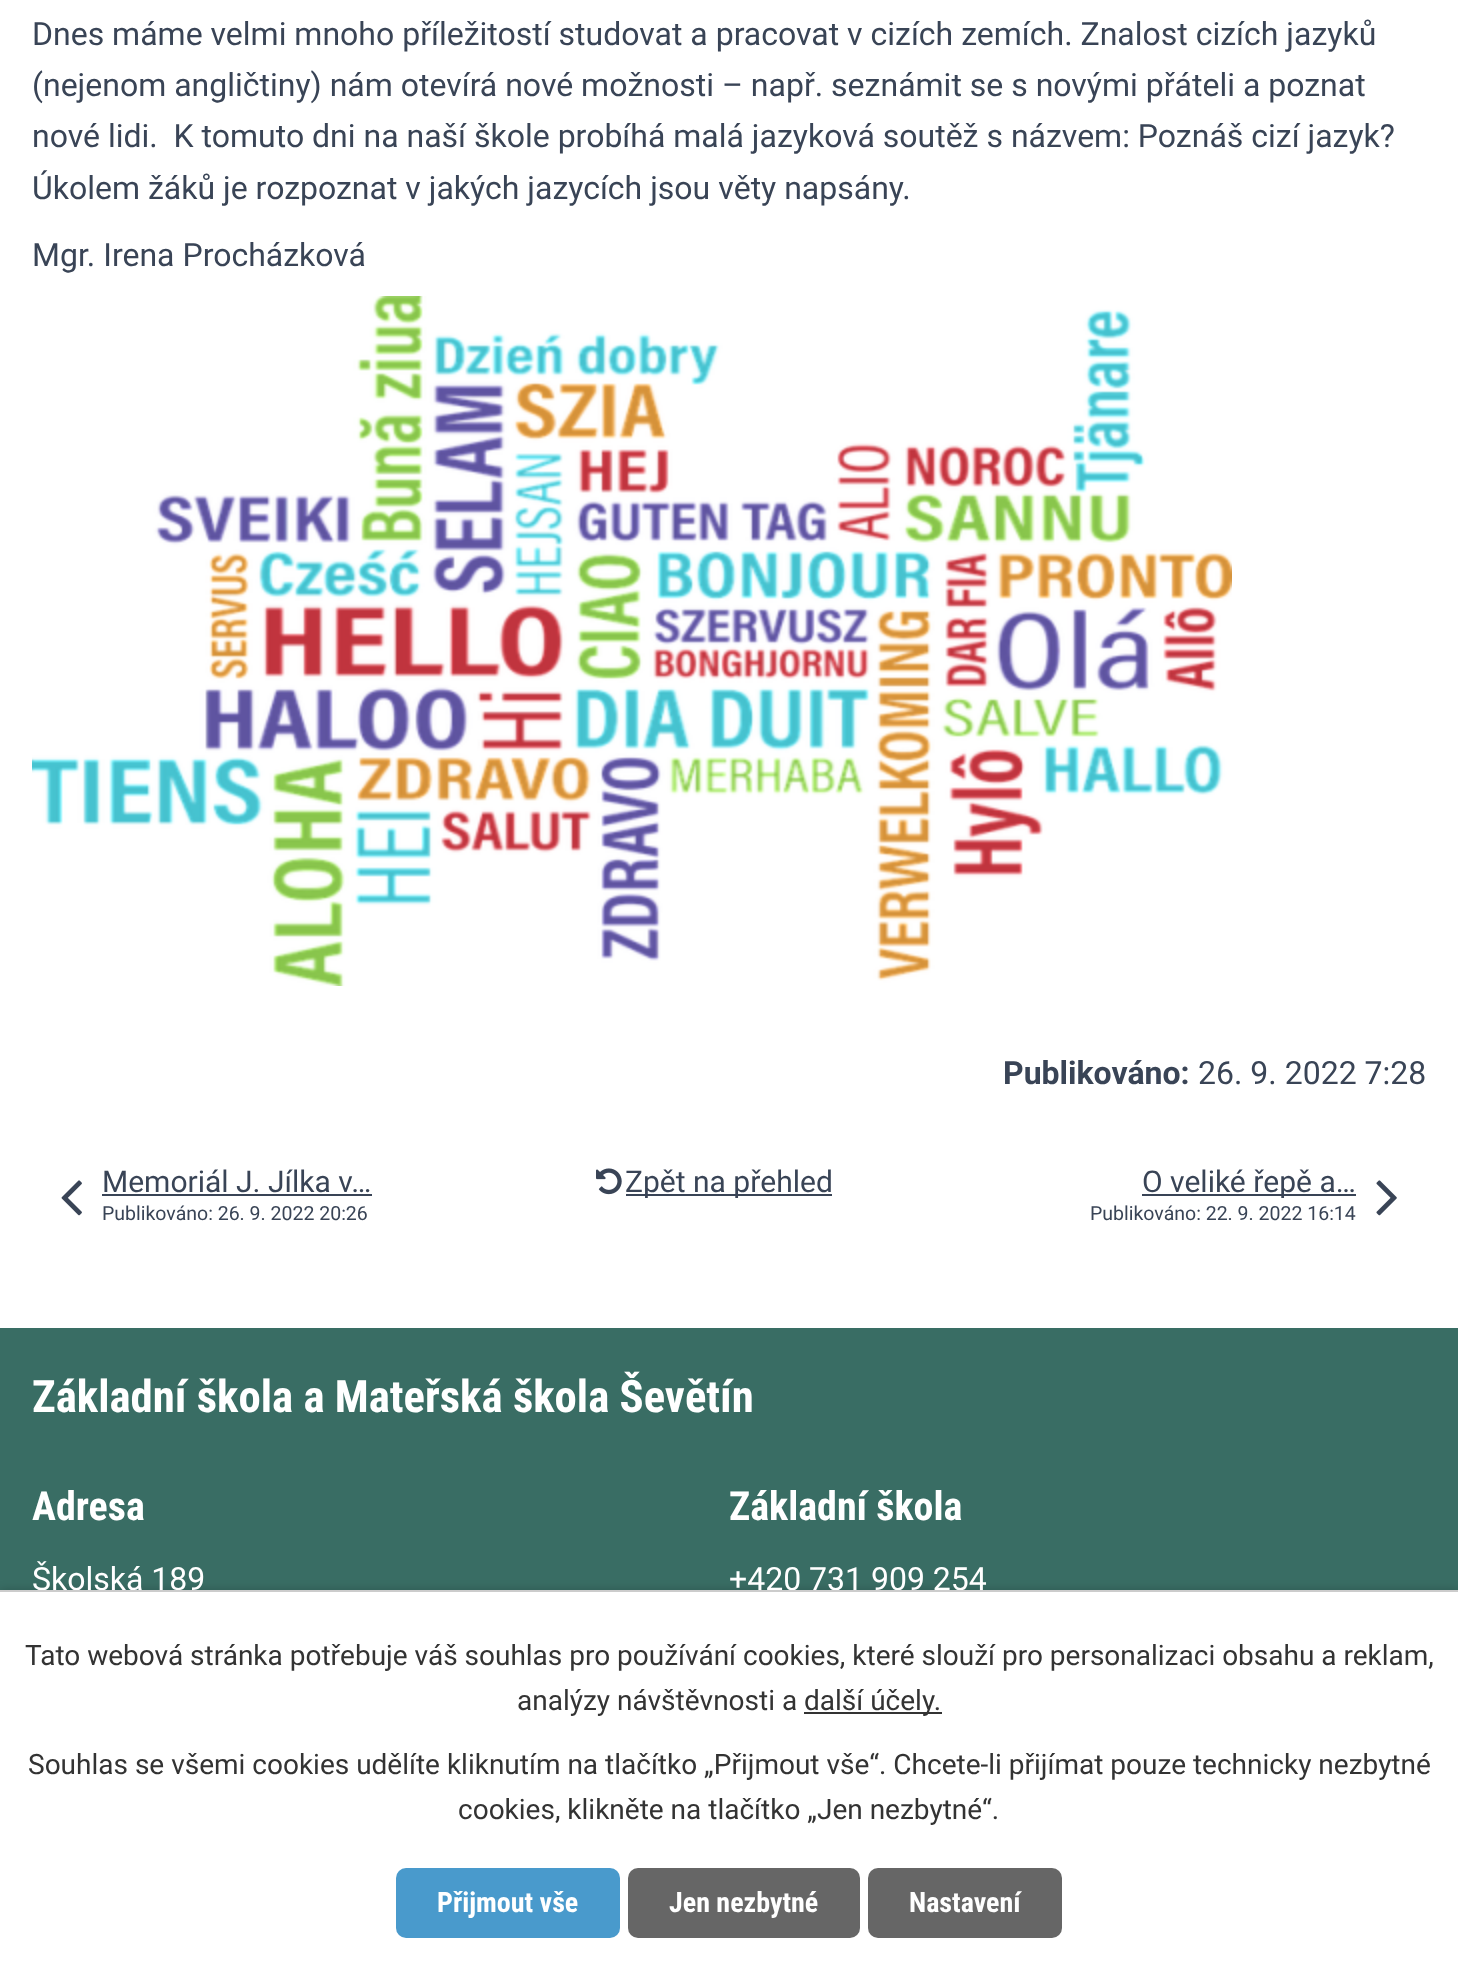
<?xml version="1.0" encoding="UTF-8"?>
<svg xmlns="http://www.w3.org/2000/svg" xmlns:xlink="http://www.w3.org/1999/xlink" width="1458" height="1974">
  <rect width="100%" height="100%" fill="#ffffff" />
  <image x="32" y="296" width="1200" height="690" xlink:href="image1.png" />
  <image x="61" y="1180" width="21" height="36" xlink:href="image2.png" />
  <rect x="102" y="1194" width="270" height="2" fill="#394456" />
  <image x="596" y="1168" width="26" height="27" xlink:href="image3.png" />
  <rect x="626" y="1194" width="206" height="2" fill="#394456" />
  <rect x="1142" y="1194" width="214" height="2" fill="#394456" />
  <image x="1376" y="1180" width="21" height="36" xlink:href="image4.png" />
  <rect y="1328" width="1458" height="262" fill="#396d64" />
  <rect y="1590" width="1458" height="384" fill="#000000" fill-opacity="0.2" filter="blur(5px)" />
  <rect y="1592" width="1458" height="382" fill="#ffffff" />
  <rect x="804" y="1712" width="138" height="2" fill="#333333" />
  <rect x="396" y="1868" width="224" height="70" rx="10" fill="#499acc" />
  <rect x="628" y="1868" width="232" height="70" rx="10" fill="#666666" />
  <rect x="868" y="1868" width="194" height="70" rx="10" fill="#666666" />
  <text x="32" y="45" style="font-family: Roboto; font-size: 32px; fill: #394456">Dnes máme velmi mnoho příležitostí studovat a pracovat v cizích zemích. Znalost cizích jazyků</text>
  <text x="32" y="96" style="font-family: Roboto; font-size: 32px; fill: #394456">(nejenom angličtiny) nám otevírá nové možnosti – např. seznámit se s novými přáteli a poznat</text>
  <text x="32" y="147" style="font-family: Roboto; font-size: 32px; fill: #394456" xml:space="preserve">nové lidi.  K tomuto dni na naší škole probíhá malá jazyková soutěž s názvem: Poznáš cizí jazyk?</text>
  <text x="32" y="199" style="font-family: Roboto; font-size: 32px; fill: #394456">Úkolem žáků je rozpoznat v jakých jazycích jsou věty napsány.</text>
  <text x="32" y="266" style="font-family: Roboto; font-size: 32px; fill: #394456">Mgr. Irena Procházková</text>
  <text x="1003" y="1084" style="font-family: Roboto; font-size: 32px; font-weight: bold; fill: #394456">Publikováno:</text>
  <text x="1198" y="1084" style="font-family: Roboto; font-size: 32px; fill: #394456">26. 9. 2022 7:28</text>
  <text x="102" y="1192" style="font-family: Roboto; font-size: 30px; fill: #394456">Memoriál J. Jílka v…</text>
  <text x="102" y="1220" style="font-family: Roboto; font-size: 19.5px; fill: #394456">Publikováno: 26. 9. 2022 20:26</text>
  <text x="625" y="1192" style="font-family: Roboto; font-size: 30px; fill: #394456">Zpět na přehled</text>
  <text x="1142" y="1192" style="font-family: Roboto; font-size: 30px; fill: #394456">O veliké řepě a…</text>
  <text x="1090" y="1220" style="font-family: Roboto; font-size: 19.5px; fill: #394456">Publikováno: 22. 9. 2022 16:14</text>
  <text x="32" y="1412" style="font-family: Roboto Condensed; font-size: 44.75px; font-weight: bold; fill: #ffffff">Základní škola a Mateřská škola Ševětín</text>
  <text x="32" y="1520" style="font-family: Roboto Condensed; font-size: 40px; font-weight: bold; fill: #ffffff">Adresa</text>
  <text x="32" y="1590" style="font-family: Roboto; font-size: 32px; fill: #ffffff">Školská 189</text>
  <text x="729" y="1520" style="font-family: Roboto Condensed; font-size: 40px; font-weight: bold; fill: #ffffff">Základní škola</text>
  <text x="729" y="1590" style="font-family: Roboto; font-size: 32px; fill: #ffffff">+420 731 909 254</text>
  <rect y="1590" width="1458" height="2" fill="#cccccc" />
  <text x="25" y="1665" style="font-family: Roboto; font-size: 28px; fill: #333333">Tato webová stránka potřebuje váš souhlas pro používání cookies, které slouží pro personalizaci obsahu a reklam,</text>
  <text x="517" y="1710" style="font-family: Roboto; font-size: 28px; fill: #333333">analýzy návštěvnosti a</text>
  <text x="804" y="1710" style="font-family: Roboto; font-size: 28px; fill: #333333">další účely.</text>
  <text x="28" y="1774" style="font-family: Roboto; font-size: 28px; fill: #333333">Souhlas se všemi cookies udělíte kliknutím na tlačítko „Přijmout vše“. Chcete-li přijímat pouze technicky nezbytné</text>
  <text x="458" y="1819" style="font-family: Roboto; font-size: 28px; fill: #333333">cookies, klikněte na tlačítko „Jen nezbytné“.</text>
  <text x="437" y="1912" style="font-family: Roboto Condensed; font-size: 28px; font-weight: bold; fill: #ffffff">Přijmout vše</text>
  <text x="669" y="1912" style="font-family: Roboto Condensed; font-size: 28px; font-weight: bold; fill: #ffffff">Jen nezbytné</text>
  <text x="909" y="1912" style="font-family: Roboto Condensed; font-size: 28px; font-weight: bold; fill: #ffffff">Nastavení</text>
</svg>
